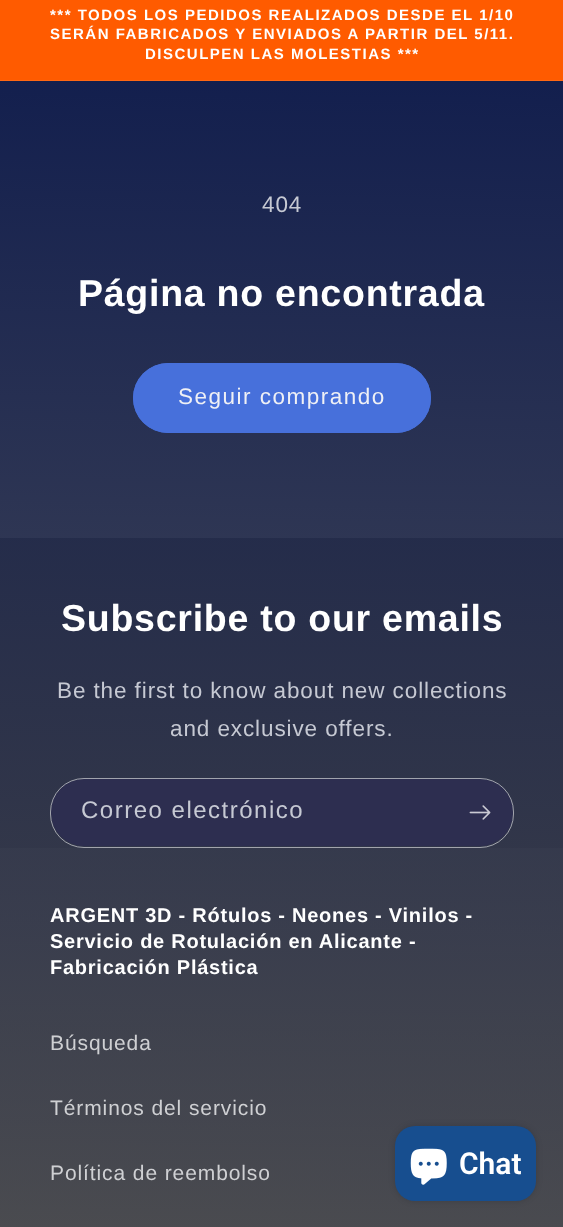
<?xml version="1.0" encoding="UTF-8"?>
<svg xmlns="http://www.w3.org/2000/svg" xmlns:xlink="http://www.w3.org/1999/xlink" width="563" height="1227">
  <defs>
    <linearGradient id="g1" gradientUnits="userSpaceOnUse" x1="293" y1="-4.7" x2="271" y2="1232"><stop offset="0" stop-color="#0e1b4d" /><stop offset="1" stop-color="#57585c" /></linearGradient>
    <linearGradient id="g2" gradientUnits="userSpaceOnUse" x1="293" y1="-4.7" x2="271" y2="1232"><stop offset="0" stop-color="#0e1b4d" /><stop offset="1" stop-color="#404146" stop-opacity="0.88" /></linearGradient>
    <linearGradient id="g3" gradientUnits="userSpaceOnUse" x1="293" y1="-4.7" x2="271" y2="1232"><stop offset="0" stop-color="#0e1b4d" /><stop offset="1" stop-color="#404146" stop-opacity="0.57" /></linearGradient>
  </defs>
  <rect width="100%" height="100%" fill="#ffffff" />
  <rect y="81" width="563" height="1146" fill="url(#g1)" />
  <rect width="563" height="80" fill="#ff5b00" />
  <rect y="80" width="563" height="1" fill="#ff6814" />
  <rect x="133" y="363" width="298" height="70" rx="35" fill="#4770db" />
  <rect x="133.5" y="363.5" width="297" height="69" rx="34.5" fill="none" stroke="#4770db" />
  <rect y="538" width="563" height="310" fill="url(#g2)" />
  <rect x="51" y="779" width="462" height="67" rx="33" fill="#2d2e50" />
  <rect x="50.5" y="778.5" width="463" height="69" rx="33.5" fill="none" stroke="#ffffff" stroke-opacity="0.55" />
  <image x="469" y="805" width="22" height="15" xlink:href="image1.png" />
  <rect y="848" width="563" height="379" fill="url(#g3)" />
  <rect x="395" y="1126" width="141" height="75" rx="20" fill="#000000" fill-opacity="0.15" filter="blur(3px)" />
  <rect x="395" y="1126" width="141" height="75" rx="20" fill="#174e8f" />
  <image x="410" y="1148" width="37" height="37" xlink:href="image2.png" />
  <text x="50" y="20" style="font-family: Liberation Sans; font-size: 15px; font-weight: bold; letter-spacing: 1.5px; fill: #ffffff">*** TODOS LOS PEDIDOS REALIZADOS DESDE EL 1/10</text>
  <text x="50" y="39" style="font-family: Liberation Sans; font-size: 15px; font-weight: bold; letter-spacing: 1.5px; fill: #ffffff">SERÁN FABRICADOS Y ENVIADOS A PARTIR DEL 5/11.</text>
  <text x="145" y="59" style="font-family: Liberation Sans; font-size: 15px; font-weight: bold; letter-spacing: 1.5px; fill: #ffffff">DISCULPEN LAS MOLESTIAS ***</text>
  <text x="262" y="212" style="font-family: Liberation Sans; font-size: 22.5px; letter-spacing: 0.9px; fill: #c6c9d3">404</text>
  <text x="78" y="306" style="font-family: Liberation Sans; font-size: 37.5px; font-weight: bold; letter-spacing: 0.75px; fill: #ffffff">Página no encontrada</text>
  <text x="178" y="404" style="font-family: Liberation Sans; font-size: 22.5px; letter-spacing: 1.5px; fill: #eff0f5">Seguir comprando</text>
  <text x="61" y="631" style="font-family: Liberation Sans; font-size: 37.5px; font-weight: bold; letter-spacing: 0.75px; fill: #ffffff">Subscribe to our emails</text>
  <text x="57" y="698" style="font-family: Liberation Sans; font-size: 22.5px; letter-spacing: 0.9px; fill: #c6c9d3">Be the first to know about new collections</text>
  <text x="170" y="736" style="font-family: Liberation Sans; font-size: 22.5px; letter-spacing: 0.9px; fill: #c6c9d3">and exclusive offers.</text>
  <text x="81" y="818" style="font-family: Liberation Sans; font-size: 24px; letter-spacing: 1.5px; fill: #c6c9d3">Correo electrónico</text>
  <text x="50" y="922" style="font-family: Liberation Sans; font-size: 20px; font-weight: bold; letter-spacing: 0.75px; fill: #ffffff">ARGENT 3D - Rótulos - Neones - Vinilos -</text>
  <text x="50" y="948" style="font-family: Liberation Sans; font-size: 20px; font-weight: bold; letter-spacing: 0.75px; fill: #ffffff">Servicio de Rotulación en Alicante -</text>
  <text x="50" y="974" style="font-family: Liberation Sans; font-size: 20px; font-weight: bold; letter-spacing: 0.75px; fill: #ffffff">Fabricación Plástica</text>
  <text x="50" y="1050" style="font-family: Liberation Sans; font-size: 21px; letter-spacing: 0.9px; fill: #cfd0d3">Búsqueda</text>
  <text x="50" y="1115" style="font-family: Liberation Sans; font-size: 21px; letter-spacing: 0.9px; fill: #cfd0d3">Términos del servicio</text>
  <text x="50" y="1180" style="font-family: Liberation Sans; font-size: 21px; letter-spacing: 0.9px; fill: #cfd0d3">Política de reembolso</text>
  <text x="459" y="1174" style="font-family: Roboto; font-size: 30px; font-weight: 600; fill: #ffffff">Chat</text>
</svg>
